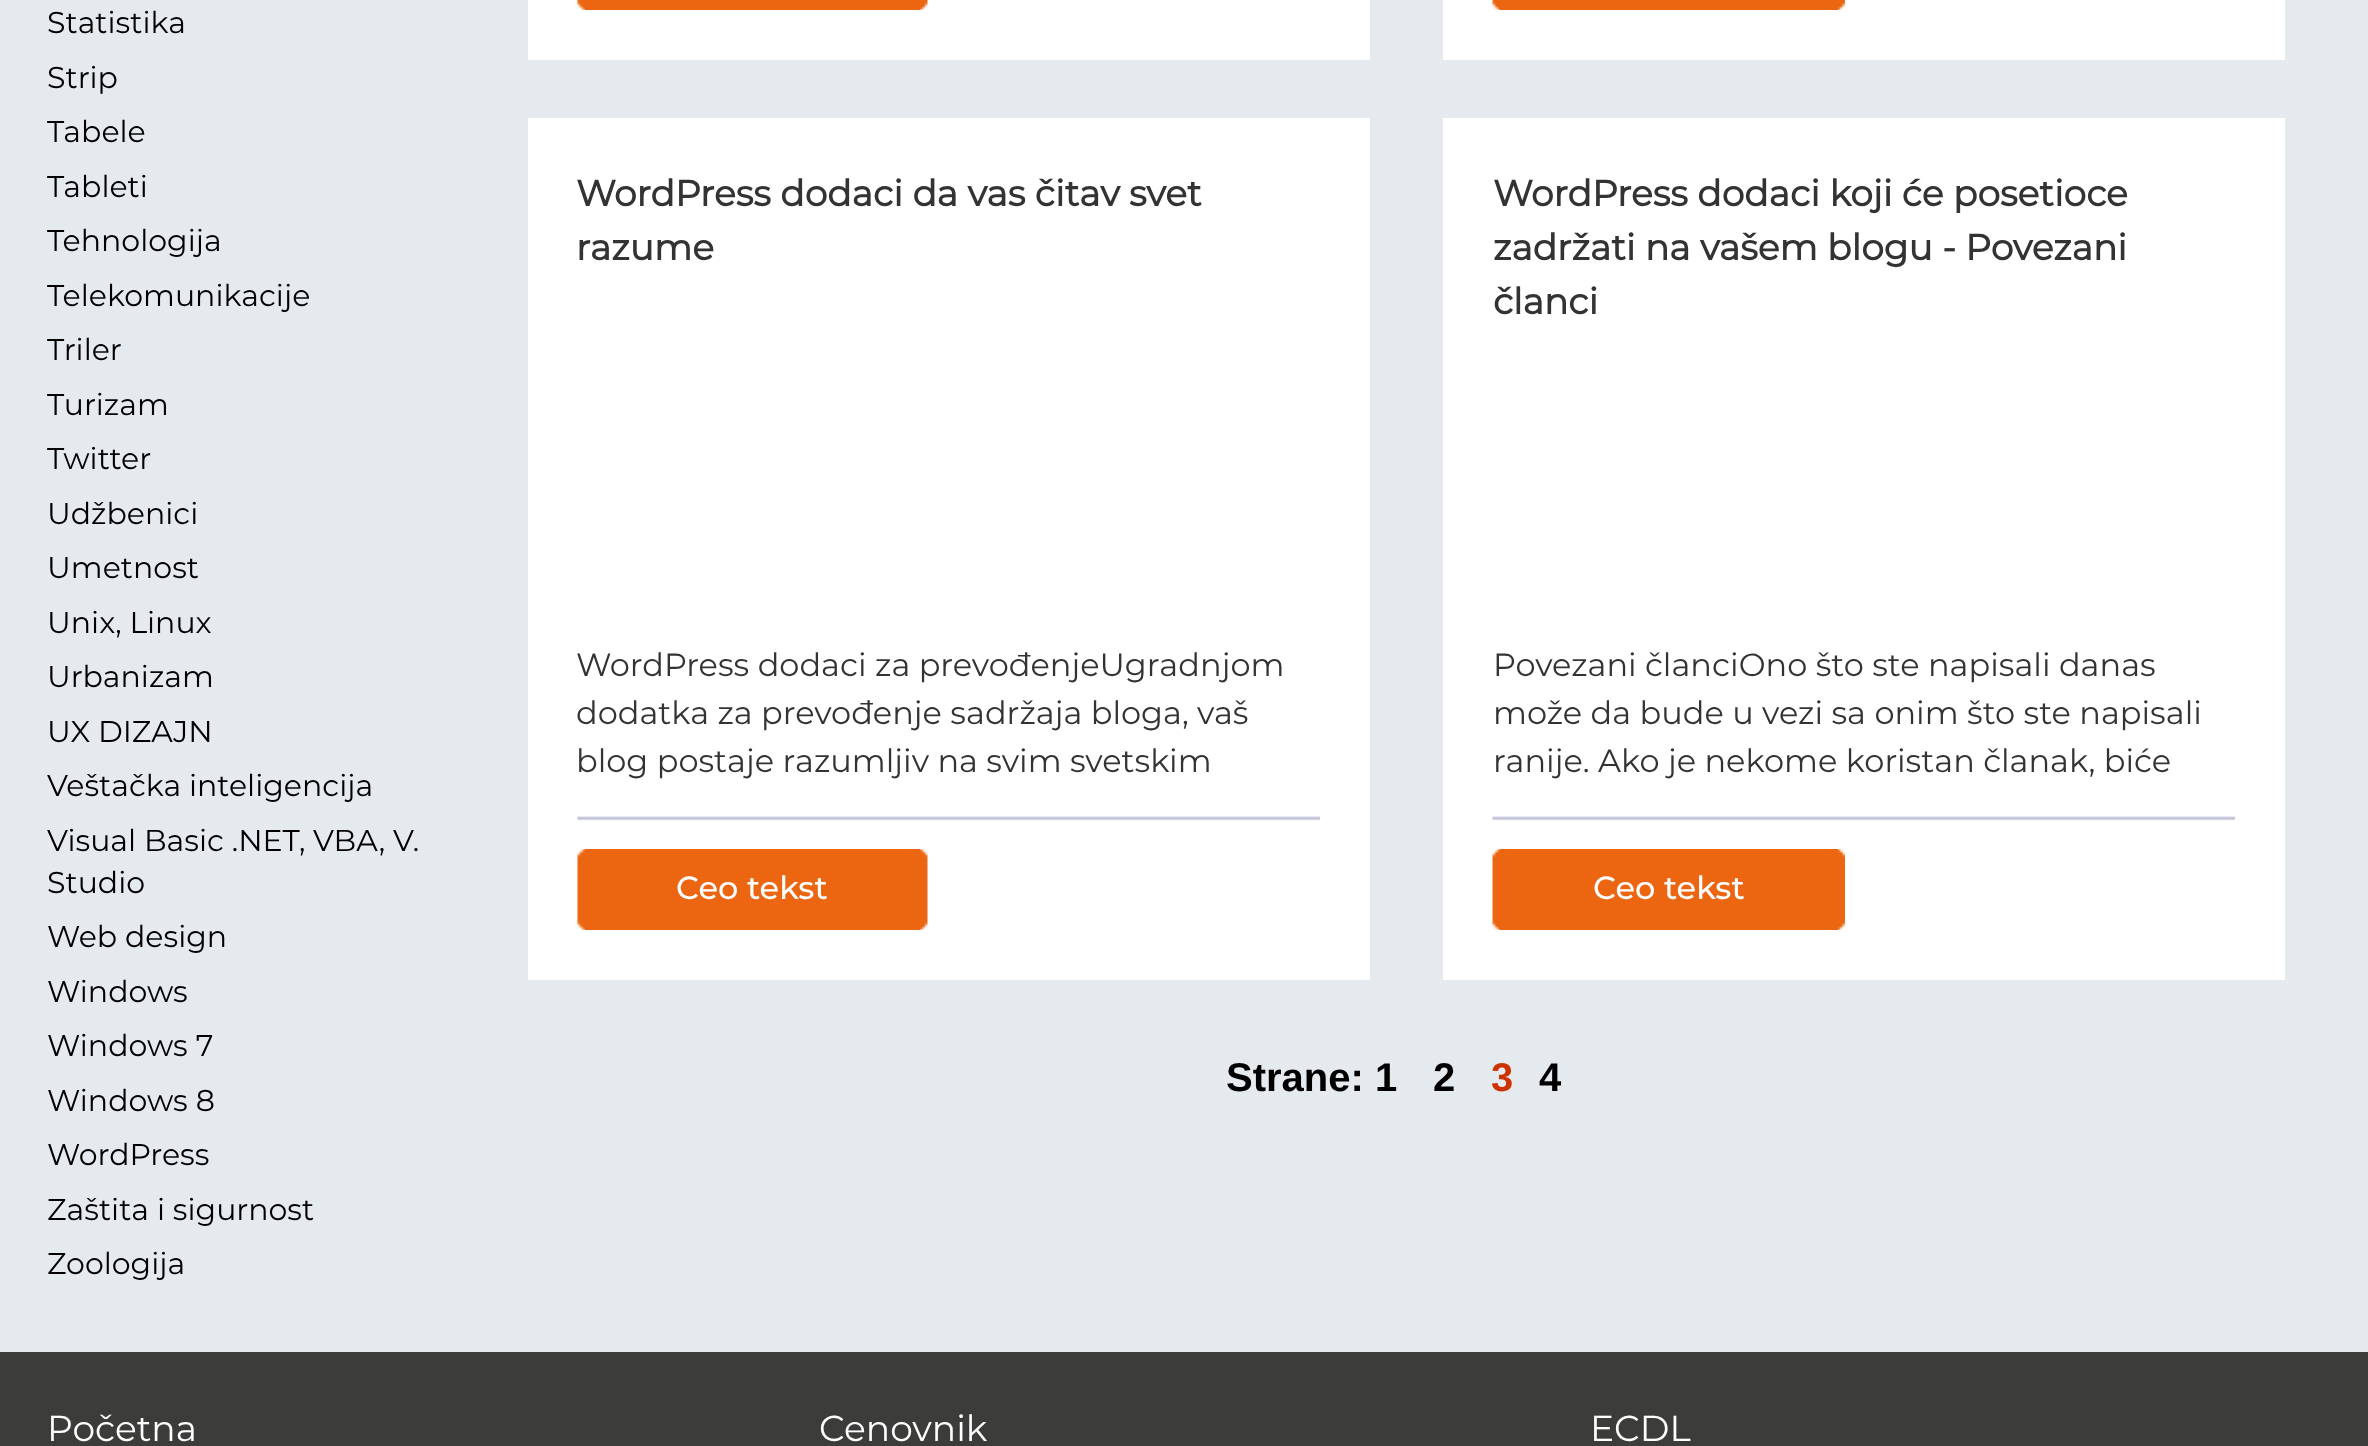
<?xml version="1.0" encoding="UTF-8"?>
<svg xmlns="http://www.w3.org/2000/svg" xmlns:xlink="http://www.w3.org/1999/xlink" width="2368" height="1446">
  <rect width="100%" height="100%" fill="#e5eaee" />
  <rect x="528" width="842" height="60" fill="#ffffff" />
  <image x="577" y="0" width="8" height="10" xlink:href="image1.png" />
  <rect x="585" width="335" height="10" fill="#ec6611" />
  <image x="920" y="0" width="8" height="10" xlink:href="image2.png" />
  <rect x="1443" width="842" height="60" fill="#ffffff" />
  <image x="1492" y="0" width="8" height="10" xlink:href="image3.png" />
  <rect x="1500" width="338" height="10" fill="#ec6611" />
  <image x="1837" y="0" width="8" height="10" xlink:href="image4.png" />
  <rect x="528" y="118" width="842" height="862" fill="#ffffff" />
  <image x="577" y="816" width="743" height="5" xlink:href="image5.png" />
  <image x="577" y="849" width="8" height="81" xlink:href="image6.png" />
  <rect x="585" y="849" width="335" height="81" fill="#ec6611" />
  <image x="920" y="849" width="8" height="81" xlink:href="image7.png" />
  <rect x="1443" y="118" width="842" height="862" fill="#ffffff" />
  <image x="1492" y="816" width="743" height="5" xlink:href="image5.png" />
  <image x="1492" y="849" width="8" height="81" xlink:href="image8.png" />
  <rect x="1500" y="849" width="338" height="81" fill="#ec6611" />
  <image x="1837" y="849" width="8" height="81" xlink:href="image9.png" />
  <rect y="1352" width="2368" height="94" fill="#3c3c3b" />
  <text x="47" y="33" style="font-family: Montserrat; font-size: 30px; fill: #000000">Statistika</text>
  <text x="47" y="88" style="font-family: Montserrat; font-size: 30px; fill: #000000">Strip</text>
  <text x="47" y="142" style="font-family: Montserrat; font-size: 30px; fill: #000000">Tabele</text>
  <text x="47" y="197" style="font-family: Montserrat; font-size: 30px; fill: #000000">Tableti</text>
  <text x="47" y="251" style="font-family: Montserrat; font-size: 30px; fill: #000000">Tehnologija</text>
  <text x="47" y="306" style="font-family: Montserrat; font-size: 30px; fill: #000000">Telekomunikacije</text>
  <text x="47" y="360" style="font-family: Montserrat; font-size: 30px; fill: #000000">Triler</text>
  <text x="47" y="415" style="font-family: Montserrat; font-size: 30px; fill: #000000">Turizam</text>
  <text x="47" y="469" style="font-family: Montserrat; font-size: 30px; fill: #000000">Twitter</text>
  <text x="47" y="524" style="font-family: Montserrat; font-size: 30px; fill: #000000">Udžbenici</text>
  <text x="47" y="578" style="font-family: Montserrat; font-size: 30px; fill: #000000">Umetnost</text>
  <text x="47" y="633" style="font-family: Montserrat; font-size: 30px; fill: #000000">Unix, Linux</text>
  <text x="47" y="687" style="font-family: Montserrat; font-size: 30px; fill: #000000">Urbanizam</text>
  <text x="47" y="742" style="font-family: Montserrat; font-size: 30px; fill: #000000">UX DIZAJN</text>
  <text x="47" y="796" style="font-family: Montserrat; font-size: 30px; fill: #000000">Veštačka inteligencija</text>
  <text x="47" y="851" style="font-family: Montserrat; font-size: 30px; fill: #000000">Visual Basic .NET, VBA, V.</text>
  <text x="47" y="893" style="font-family: Montserrat; font-size: 30px; fill: #000000">Studio</text>
  <text x="47" y="947" style="font-family: Montserrat; font-size: 30px; fill: #000000">Web design</text>
  <text x="47" y="1002" style="font-family: Montserrat; font-size: 30px; fill: #000000">Windows</text>
  <text x="47" y="1056" style="font-family: Montserrat; font-size: 30px; fill: #000000">Windows 7</text>
  <text x="47" y="1111" style="font-family: Montserrat; font-size: 30px; fill: #000000">Windows 8</text>
  <text x="47" y="1165" style="font-family: Montserrat; font-size: 30px; fill: #000000">WordPress</text>
  <text x="47" y="1220" style="font-family: Montserrat; font-size: 30px; fill: #000000">Zaštita i sigurnost</text>
  <text x="47" y="1274" style="font-family: Montserrat; font-size: 30px; fill: #000000">Zoologija</text>
  <text x="576" y="206" style="font-family: Montserrat; font-size: 36px; font-weight: bold; fill: #333333">WordPress dodaci da vas čitav svet</text>
  <text x="576" y="260" style="font-family: Montserrat; font-size: 36px; font-weight: bold; fill: #333333">razume</text>
  <text x="576" y="676" style="font-family: Montserrat; font-size: 32px; fill: #333333">WordPress dodaci za prevođenjeUgradnjom</text>
  <text x="576" y="724" style="font-family: Montserrat; font-size: 32px; fill: #333333">dodatka za prevođenje sadržaja bloga, vaš</text>
  <text x="576" y="772" style="font-family: Montserrat; font-size: 32px; fill: #333333">blog postaje razumljiv na svim svetskim</text>
  <text x="676" y="899" style="font-family: Montserrat; font-size: 32px; font-weight: 500; fill: #ffffff">Ceo tekst</text>
  <text x="1493" y="206" style="font-family: Montserrat; font-size: 36px; font-weight: bold; fill: #333333">WordPress dodaci koji će posetioce</text>
  <text x="1493" y="260" style="font-family: Montserrat; font-size: 36px; font-weight: bold; fill: #333333">zadržati na vašem blogu - Povezani</text>
  <text x="1493" y="314" style="font-family: Montserrat; font-size: 36px; font-weight: bold; fill: #333333">članci</text>
  <text x="1493" y="676" style="font-family: Montserrat; font-size: 32px; fill: #333333">Povezani članciOno što ste napisali danas</text>
  <text x="1493" y="724" style="font-family: Montserrat; font-size: 32px; fill: #333333">može da bude u vezi sa onim što ste napisali</text>
  <text x="1493" y="772" style="font-family: Montserrat; font-size: 32px; fill: #333333">ranije. Ako je nekome koristan članak, biće</text>
  <text x="1593" y="899" style="font-family: Montserrat; font-size: 32px; font-weight: 500; fill: #ffffff">Ceo tekst</text>
  <text x="1226" y="1091" style="font-family: Liberation Sans; font-size: 40px; font-weight: bold; fill: #000000">Strane: 1</text>
  <text x="1433" y="1091" style="font-family: Liberation Sans; font-size: 40px; font-weight: bold; fill: #000000">2</text>
  <text x="1491" y="1091" style="font-family: Liberation Sans; font-size: 40px; font-weight: bold; fill: #cc3300">3</text>
  <text x="1539" y="1091" style="font-family: Liberation Sans; font-size: 40px; font-weight: bold; fill: #000000">4</text>
  <text x="47" y="1441" style="font-family: Montserrat; font-size: 36px; fill: #ffffff">Početna</text>
  <text x="819" y="1441" style="font-family: Montserrat; font-size: 36px; fill: #ffffff">Cenovnik</text>
  <text x="1590" y="1441" style="font-family: Montserrat; font-size: 36px; fill: #ffffff">ECDL</text>
</svg>
